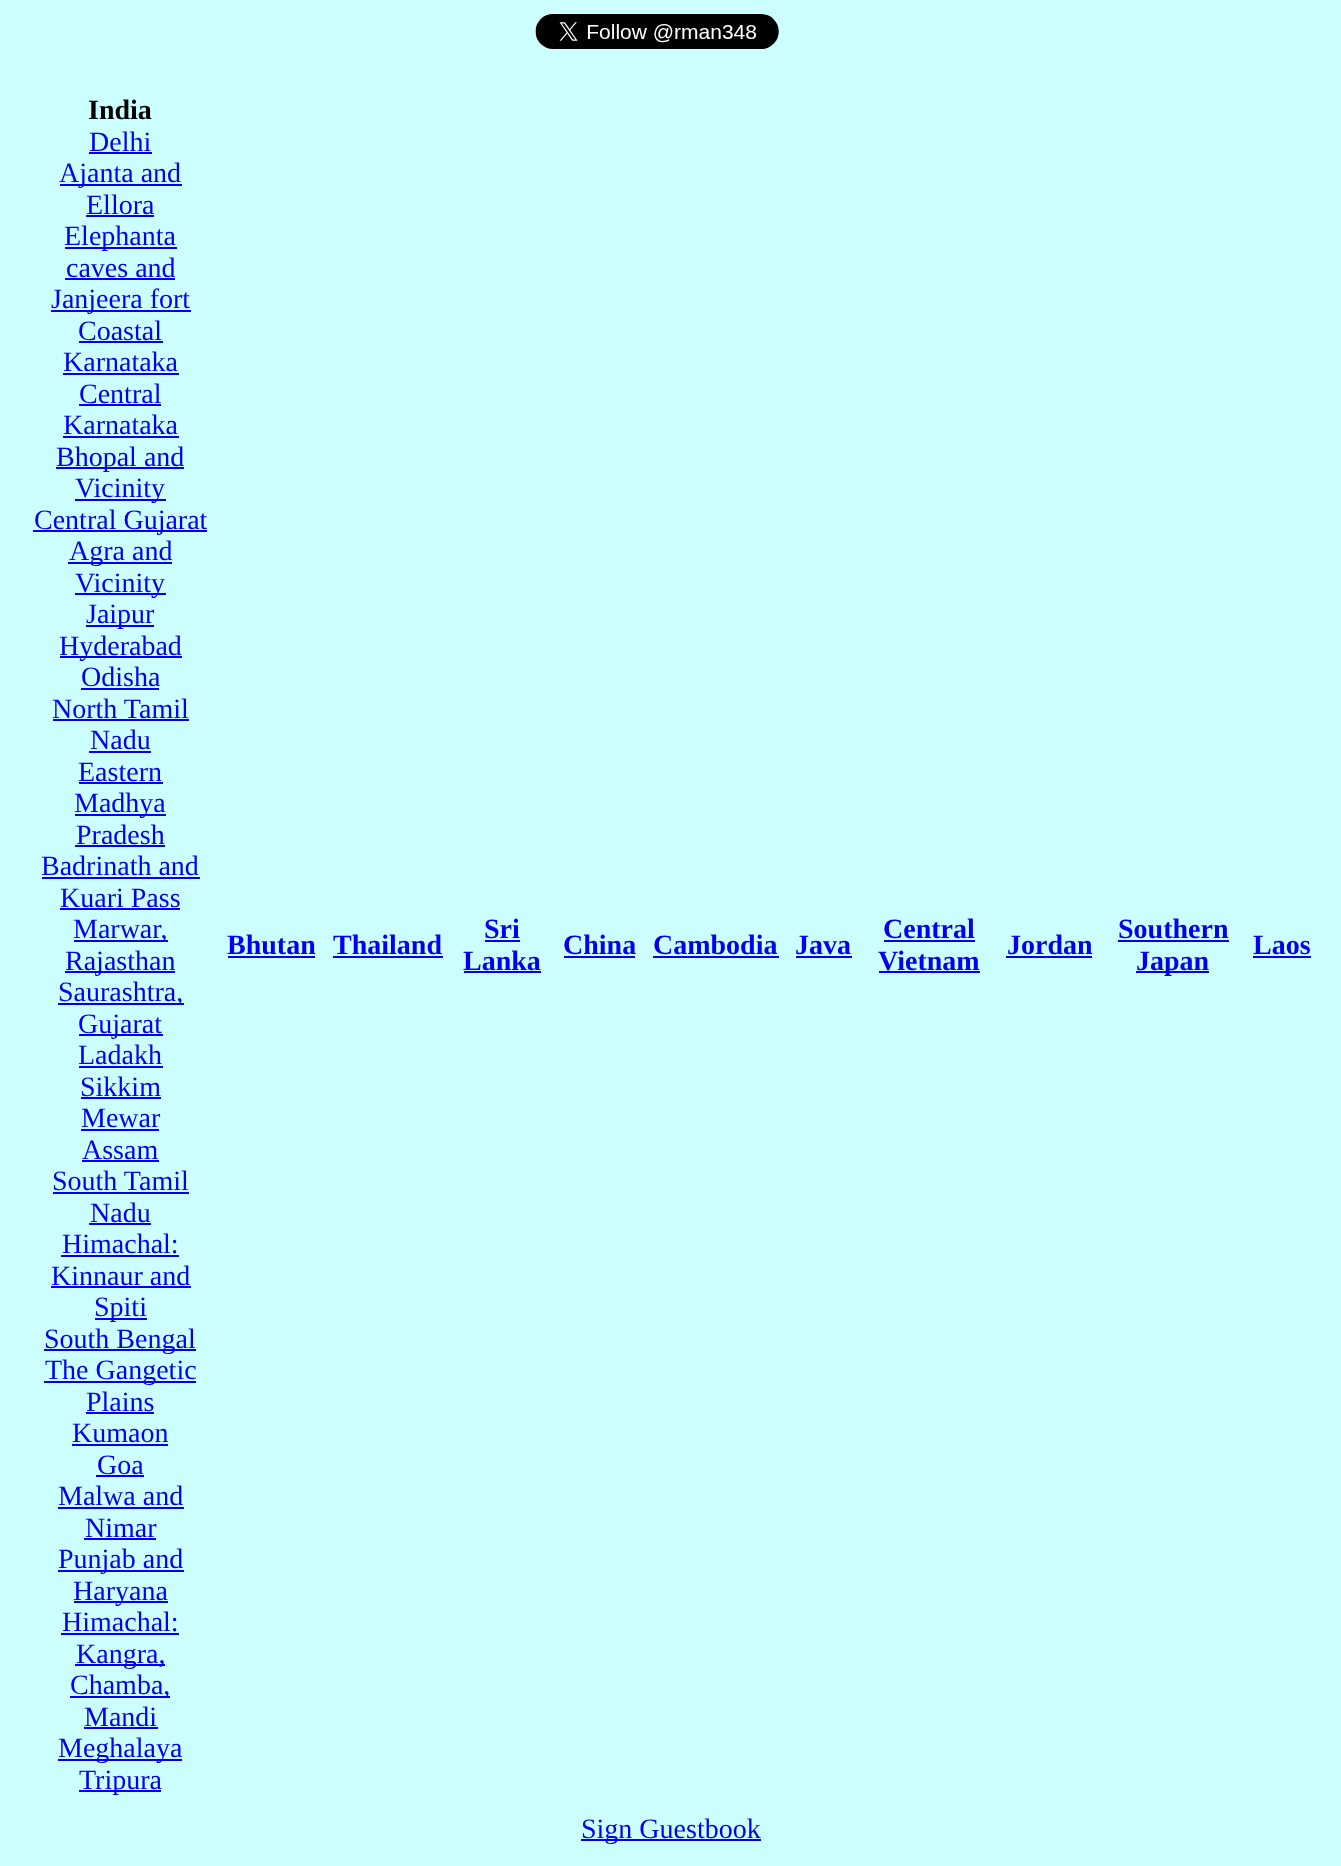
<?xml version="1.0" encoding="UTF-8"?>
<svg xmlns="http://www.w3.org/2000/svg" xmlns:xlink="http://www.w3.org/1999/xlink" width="1341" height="1866">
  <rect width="100%" height="100%" fill="#ccffff" />
  <image x="535" y="14" width="244" height="35" xlink:href="image1.png" />
  <rect x="89" y="152" width="63" height="2" fill="#0000ee" />
  <rect x="60" y="184" width="122" height="2" fill="#0000ee" />
  <rect x="86" y="215" width="68" height="2" fill="#0000ee" />
  <rect x="65" y="247" width="112" height="2" fill="#0000ee" />
  <rect x="65" y="278" width="110" height="2" fill="#0000ee" />
  <rect x="51" y="310" width="140" height="2" fill="#0000ee" />
  <rect x="79" y="341" width="84" height="2" fill="#0000ee" />
  <rect x="63" y="373" width="116" height="2" fill="#0000ee" />
  <rect x="79" y="404" width="82" height="2" fill="#0000ee" />
  <rect x="63" y="436" width="116" height="2" fill="#0000ee" />
  <rect x="56" y="467" width="128" height="2" fill="#0000ee" />
  <rect x="75" y="499" width="91" height="2" fill="#0000ee" />
  <rect x="33" y="530" width="174" height="2" fill="#0000ee" />
  <rect x="68" y="562" width="104" height="2" fill="#0000ee" />
  <rect x="75" y="593" width="91" height="2" fill="#0000ee" />
  <rect x="86" y="625" width="68" height="2" fill="#0000ee" />
  <rect x="60" y="656" width="122" height="2" fill="#0000ee" />
  <rect x="81" y="688" width="78" height="2" fill="#0000ee" />
  <rect x="53" y="719" width="136" height="2" fill="#0000ee" />
  <rect x="89" y="751" width="62" height="2" fill="#0000ee" />
  <rect x="79" y="782" width="84" height="2" fill="#0000ee" />
  <rect x="75" y="814" width="91" height="2" fill="#0000ee" />
  <rect x="75" y="845" width="90" height="2" fill="#0000ee" />
  <rect x="42" y="877" width="158" height="2" fill="#0000ee" />
  <rect x="60" y="908" width="120" height="2" fill="#0000ee" />
  <rect x="74" y="940" width="94" height="2" fill="#0000ee" />
  <rect x="65" y="971" width="110" height="2" fill="#0000ee" />
  <rect x="58" y="1003" width="126" height="2" fill="#0000ee" />
  <rect x="79" y="1034" width="84" height="2" fill="#0000ee" />
  <rect x="79" y="1066" width="84" height="2" fill="#0000ee" />
  <rect x="81" y="1097" width="80" height="2" fill="#0000ee" />
  <rect x="81" y="1129" width="78" height="2" fill="#0000ee" />
  <rect x="82" y="1160" width="77" height="2" fill="#0000ee" />
  <rect x="53" y="1192" width="136" height="2" fill="#0000ee" />
  <rect x="89" y="1223" width="62" height="2" fill="#0000ee" />
  <rect x="61" y="1255" width="118" height="2" fill="#0000ee" />
  <rect x="51" y="1286" width="140" height="2" fill="#0000ee" />
  <rect x="95" y="1318" width="52" height="2" fill="#0000ee" />
  <rect x="44" y="1349" width="152" height="2" fill="#0000ee" />
  <rect x="44" y="1381" width="152" height="2" fill="#0000ee" />
  <rect x="86" y="1412" width="68" height="2" fill="#0000ee" />
  <rect x="72" y="1444" width="96" height="2" fill="#0000ee" />
  <rect x="96" y="1475" width="48" height="2" fill="#0000ee" />
  <rect x="58" y="1507" width="126" height="2" fill="#0000ee" />
  <rect x="84" y="1538" width="72" height="2" fill="#0000ee" />
  <rect x="58" y="1570" width="126" height="2" fill="#0000ee" />
  <rect x="74" y="1601" width="94" height="2" fill="#0000ee" />
  <rect x="61" y="1633" width="118" height="2" fill="#0000ee" />
  <rect x="75" y="1664" width="90" height="2" fill="#0000ee" />
  <rect x="70" y="1696" width="100" height="2" fill="#0000ee" />
  <rect x="84" y="1727" width="74" height="2" fill="#0000ee" />
  <rect x="58" y="1759" width="124" height="2" fill="#0000ee" />
  <rect x="79" y="1790" width="82" height="2" fill="#0000ee" />
  <rect x="228" y="956" width="87" height="2" fill="#0000ee" />
  <rect x="333" y="956" width="110" height="2" fill="#0000ee" />
  <rect x="485" y="940" width="35" height="2" fill="#0000ee" />
  <rect x="464" y="971" width="77" height="2" fill="#0000ee" />
  <rect x="564" y="956" width="71" height="2" fill="#0000ee" />
  <rect x="653" y="956" width="126" height="2" fill="#0000ee" />
  <rect x="796" y="956" width="56" height="2" fill="#0000ee" />
  <rect x="884" y="940" width="91" height="2" fill="#0000ee" />
  <rect x="879" y="971" width="101" height="2" fill="#0000ee" />
  <rect x="1006" y="956" width="86" height="2" fill="#0000ee" />
  <rect x="1118" y="940" width="111" height="2" fill="#0000ee" />
  <rect x="1136" y="971" width="73" height="2" fill="#0000ee" />
  <rect x="1253" y="956" width="58" height="2" fill="#0000ee" />
  <rect x="581" y="1839" width="180" height="2" fill="#0000ee" />
  <text x="88" y="119" style="font-family: Liberation Serif; font-size: 28px; font-weight: bold; fill: #000000">India</text>
  <text x="89" y="151" style="font-family: Liberation Serif; font-size: 28px; fill: #0000ee">Delhi</text>
  <text x="59" y="182" style="font-family: Liberation Serif; font-size: 28px; fill: #0000ee">Ajanta and</text>
  <text x="86" y="214" style="font-family: Liberation Serif; font-size: 28px; fill: #0000ee">Ellora</text>
  <text x="64" y="245" style="font-family: Liberation Serif; font-size: 28px; fill: #0000ee">Elephanta</text>
  <text x="66" y="277" style="font-family: Liberation Serif; font-size: 28px; fill: #0000ee">caves and</text>
  <text x="51" y="308" style="font-family: Liberation Serif; font-size: 28px; fill: #0000ee">Janjeera fort</text>
  <text x="78" y="340" style="font-family: Liberation Serif; font-size: 28px; fill: #0000ee">Coastal</text>
  <text x="63" y="371" style="font-family: Liberation Serif; font-size: 28px; fill: #0000ee">Karnataka</text>
  <text x="79" y="403" style="font-family: Liberation Serif; font-size: 28px; fill: #0000ee">Central</text>
  <text x="63" y="434" style="font-family: Liberation Serif; font-size: 28px; fill: #0000ee">Karnataka</text>
  <text x="56" y="466" style="font-family: Liberation Serif; font-size: 28px; fill: #0000ee">Bhopal and</text>
  <text x="75" y="497" style="font-family: Liberation Serif; font-size: 28px; fill: #0000ee">Vicinity</text>
  <text x="34" y="529" style="font-family: Liberation Serif; font-size: 28px; fill: #0000ee">Central Gujarat</text>
  <text x="69" y="560" style="font-family: Liberation Serif; font-size: 28px; fill: #0000ee">Agra and</text>
  <text x="75" y="592" style="font-family: Liberation Serif; font-size: 28px; fill: #0000ee">Vicinity</text>
  <text x="86" y="623" style="font-family: Liberation Serif; font-size: 28px; fill: #0000ee">Jaipur</text>
  <text x="59" y="655" style="font-family: Liberation Serif; font-size: 28px; fill: #0000ee">Hyderabad</text>
  <text x="81" y="686" style="font-family: Liberation Serif; font-size: 28px; fill: #0000ee">Odisha</text>
  <text x="52" y="718" style="font-family: Liberation Serif; font-size: 28px; fill: #0000ee">North Tamil</text>
  <text x="90" y="749" style="font-family: Liberation Serif; font-size: 28px; fill: #0000ee">Nadu</text>
  <text x="78" y="781" style="font-family: Liberation Serif; font-size: 28px; fill: #0000ee">Eastern</text>
  <text x="74" y="812" style="font-family: Liberation Serif; font-size: 28px; fill: #0000ee">Madhya</text>
  <text x="76" y="844" style="font-family: Liberation Serif; font-size: 28px; fill: #0000ee">Pradesh</text>
  <text x="41" y="875" style="font-family: Liberation Serif; font-size: 28px; fill: #0000ee">Badrinath and</text>
  <text x="60" y="907" style="font-family: Liberation Serif; font-size: 28px; fill: #0000ee">Kuari Pass</text>
  <text x="73" y="938" style="font-family: Liberation Serif; font-size: 28px; fill: #0000ee">Marwar,</text>
  <text x="65" y="970" style="font-family: Liberation Serif; font-size: 28px; fill: #0000ee">Rajasthan</text>
  <text x="58" y="1001" style="font-family: Liberation Serif; font-size: 28px; fill: #0000ee">Saurashtra,</text>
  <text x="78" y="1033" style="font-family: Liberation Serif; font-size: 28px; fill: #0000ee">Gujarat</text>
  <text x="78" y="1064" style="font-family: Liberation Serif; font-size: 28px; fill: #0000ee">Ladakh</text>
  <text x="80" y="1096" style="font-family: Liberation Serif; font-size: 28px; fill: #0000ee">Sikkim</text>
  <text x="81" y="1127" style="font-family: Liberation Serif; font-size: 28px; fill: #0000ee">Mewar</text>
  <text x="82" y="1159" style="font-family: Liberation Serif; font-size: 28px; fill: #0000ee">Assam</text>
  <text x="52" y="1190" style="font-family: Liberation Serif; font-size: 28px; fill: #0000ee">South Tamil</text>
  <text x="90" y="1222" style="font-family: Liberation Serif; font-size: 28px; fill: #0000ee">Nadu</text>
  <text x="62" y="1253" style="font-family: Liberation Serif; font-size: 28px; fill: #0000ee">Himachal:</text>
  <text x="51" y="1285" style="font-family: Liberation Serif; font-size: 28px; fill: #0000ee">Kinnaur and</text>
  <text x="94" y="1316" style="font-family: Liberation Serif; font-size: 28px; fill: #0000ee">Spiti</text>
  <text x="44" y="1348" style="font-family: Liberation Serif; font-size: 28px; fill: #0000ee">South Bengal</text>
  <text x="45" y="1379" style="font-family: Liberation Serif; font-size: 28px; fill: #0000ee">The Gangetic</text>
  <text x="86" y="1411" style="font-family: Liberation Serif; font-size: 28px; fill: #0000ee">Plains</text>
  <text x="72" y="1442" style="font-family: Liberation Serif; font-size: 28px; fill: #0000ee">Kumaon</text>
  <text x="97" y="1474" style="font-family: Liberation Serif; font-size: 28px; fill: #0000ee">Goa</text>
  <text x="58" y="1505" style="font-family: Liberation Serif; font-size: 28px; fill: #0000ee">Malwa and</text>
  <text x="85" y="1537" style="font-family: Liberation Serif; font-size: 28px; fill: #0000ee">Nimar</text>
  <text x="58" y="1568" style="font-family: Liberation Serif; font-size: 28px; fill: #0000ee">Punjab and</text>
  <text x="73" y="1600" style="font-family: Liberation Serif; font-size: 28px; fill: #0000ee">Haryana</text>
  <text x="62" y="1631" style="font-family: Liberation Serif; font-size: 28px; fill: #0000ee">Himachal:</text>
  <text x="76" y="1663" style="font-family: Liberation Serif; font-size: 28px; fill: #0000ee">Kangra,</text>
  <text x="70" y="1694" style="font-family: Liberation Serif; font-size: 28px; fill: #0000ee">Chamba,</text>
  <text x="84" y="1726" style="font-family: Liberation Serif; font-size: 28px; fill: #0000ee">Mandi</text>
  <text x="58" y="1757" style="font-family: Liberation Serif; font-size: 28px; fill: #0000ee">Meghalaya</text>
  <text x="79" y="1789" style="font-family: Liberation Serif; font-size: 28px; fill: #0000ee">Tripura</text>
  <text x="227" y="954" style="font-family: Liberation Serif; font-size: 28px; font-weight: bold; fill: #0000ee">Bhutan</text>
  <text x="333" y="954" style="font-family: Liberation Serif; font-size: 28px; font-weight: bold; fill: #0000ee">Thailand</text>
  <text x="484" y="938" style="font-family: Liberation Serif; font-size: 28px; font-weight: bold; fill: #0000ee">Sri</text>
  <text x="463" y="970" style="font-family: Liberation Serif; font-size: 28px; font-weight: bold; fill: #0000ee">Lanka</text>
  <text x="563" y="954" style="font-family: Liberation Serif; font-size: 28px; font-weight: bold; fill: #0000ee">China</text>
  <text x="653" y="954" style="font-family: Liberation Serif; font-size: 28px; font-weight: bold; fill: #0000ee">Cambodia</text>
  <text x="795" y="954" style="font-family: Liberation Serif; font-size: 28px; font-weight: bold; fill: #0000ee">Java</text>
  <text x="883" y="938" style="font-family: Liberation Serif; font-size: 28px; font-weight: bold; fill: #0000ee">Central</text>
  <text x="878" y="970" style="font-family: Liberation Serif; font-size: 28px; font-weight: bold; fill: #0000ee">Vietnam</text>
  <text x="1007" y="954" style="font-family: Liberation Serif; font-size: 28px; font-weight: bold; fill: #0000ee">Jordan</text>
  <text x="1118" y="938" style="font-family: Liberation Serif; font-size: 28px; font-weight: bold; fill: #0000ee">Southern</text>
  <text x="1136" y="970" style="font-family: Liberation Serif; font-size: 28px; font-weight: bold; fill: #0000ee">Japan</text>
  <text x="1253" y="954" style="font-family: Liberation Serif; font-size: 28px; font-weight: bold; fill: #0000ee">Laos</text>
  <text x="581" y="1838" style="font-family: Liberation Serif; font-size: 28px; fill: #0000ee">Sign Guestbook</text>
</svg>
